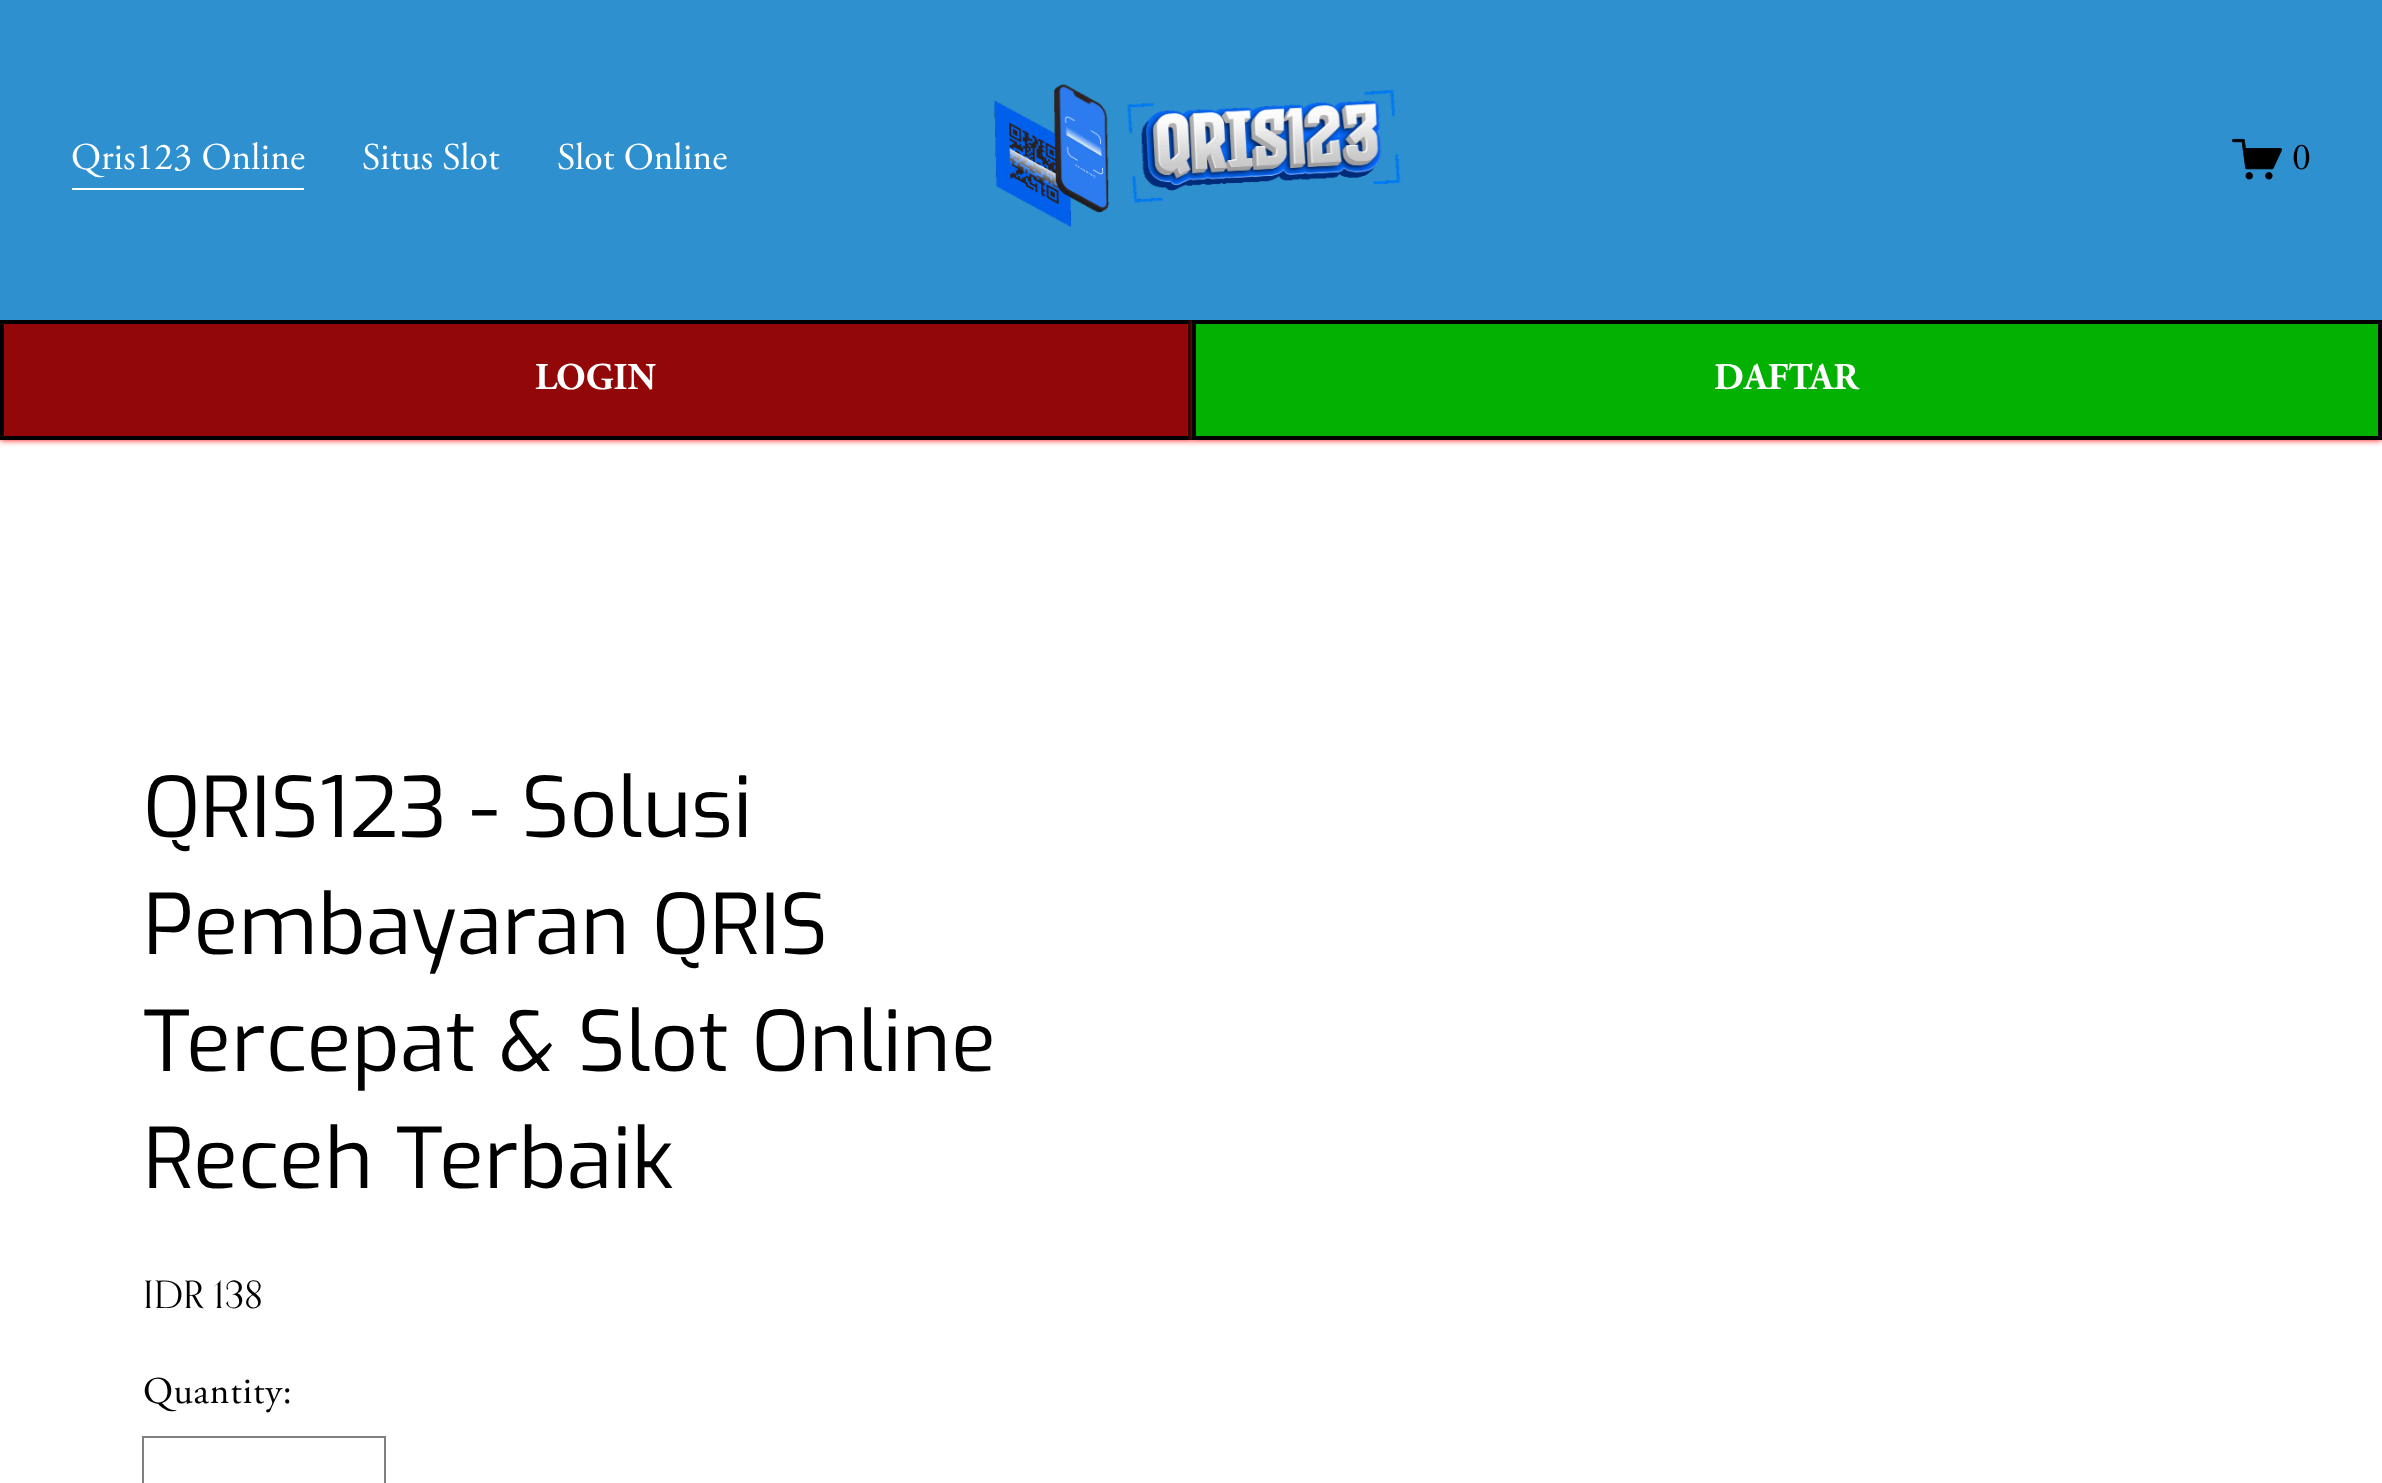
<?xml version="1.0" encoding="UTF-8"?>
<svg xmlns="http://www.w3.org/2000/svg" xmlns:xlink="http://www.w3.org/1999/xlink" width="2382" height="1483">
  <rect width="100%" height="100%" fill="#ffffff" />
  <rect y="320" width="1192" height="120" fill="#ff0000" filter="blur(3px)" />
  <rect x="2" y="322" width="1188" height="116" fill="#920707" stroke="#000000" stroke-width="4" />
  <rect x="1192" y="320" width="1190" height="120" fill="#ff0000" filter="blur(3px)" />
  <rect width="2382" height="320" fill="#2e90ce" />
  <rect x="72" y="188" width="232" height="2" fill="#ffffff" />
  <image x="994" y="84" width="407" height="143" xlink:href="image1.png" />
  <image x="2232" y="138" width="50" height="42" xlink:href="image2.png" />
  <rect x="1194" y="322" width="1186" height="116" fill="#03b103" stroke="#000000" stroke-width="4" />
  <rect x="143" y="1437" width="242" height="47" fill="none" stroke="#808080" stroke-width="2" />
  <text x="71" y="169" style="font-family: Adobe Garamond; font-size: 37.75px; fill: #ffffff">Qris123 Online</text>
  <text x="362" y="169" style="font-family: Adobe Garamond; font-size: 37.75px; fill: #ffffff">Situs Slot</text>
  <text x="557" y="169" style="font-family: Adobe Garamond; font-size: 37.75px; fill: #ffffff">Slot Online</text>
  <text x="2292" y="169" style="font-family: Adobe Garamond; font-size: 37.75px; fill: #000000">0</text>
  <text x="535" y="389" style="font-family: Adobe Garamond; font-size: 37.75px; font-weight: bold; fill: #ffffff">LOGIN</text>
  <text x="1714" y="389" style="font-family: Adobe Garamond; font-size: 37.75px; font-weight: bold; fill: #ffffff">DAFTAR</text>
  <text x="143" y="837" style="font-family: Exo; font-size: 83.5px; fill: #000000">QRIS123 - Solusi</text>
  <text x="143" y="954" style="font-family: Exo; font-size: 83.5px; fill: #000000">Pembayaran QRIS</text>
  <text x="143" y="1071" style="font-family: Exo; font-size: 83.5px; fill: #000000">Tercepat &amp; Slot Online</text>
  <text x="143" y="1188" style="font-family: Exo; font-size: 83.5px; fill: #000000">Receh Terbaik</text>
  <text x="143" y="1308" style="font-family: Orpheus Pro; font-size: 37.75px; fill: #000000">IDR 138</text>
  <text x="143" y="1403" style="font-family: Adobe Garamond; font-size: 37.75px; letter-spacing: 0.75px; fill: #000000">Quantity:</text>
</svg>
